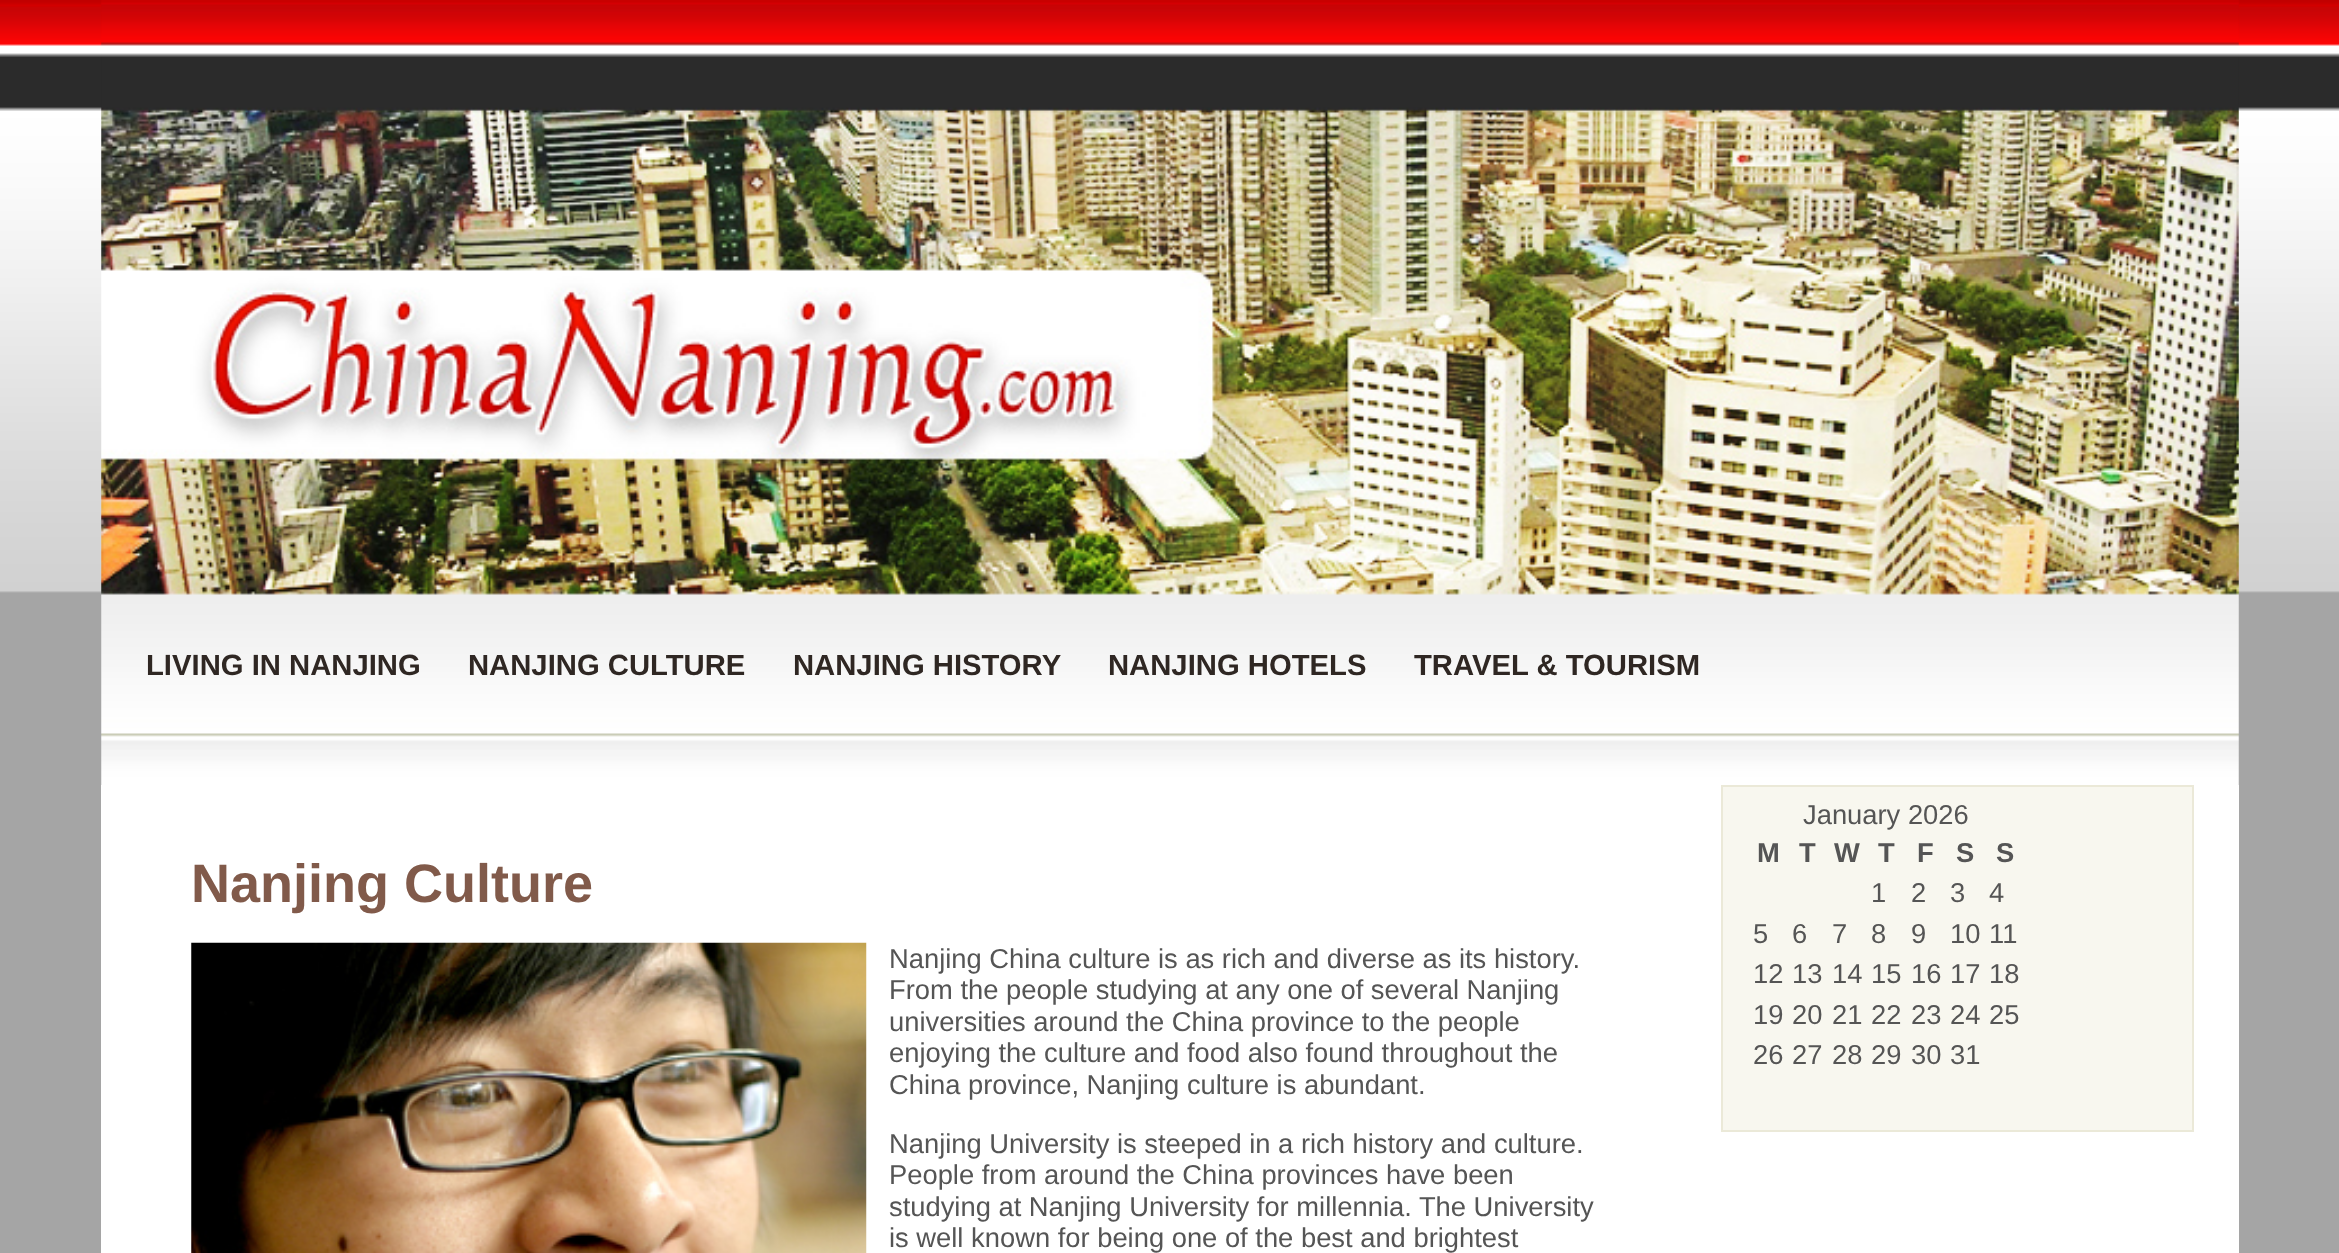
<?xml version="1.0" encoding="UTF-8"?>
<svg xmlns="http://www.w3.org/2000/svg" xmlns:xlink="http://www.w3.org/1999/xlink" width="2339" height="1253">
  <rect width="100%" height="100%" fill="#a5a5a5" />
  <image x="0" y="0" width="2339" height="593" xlink:href="image1.png" />
  <image x="101" y="0" width="2138" height="785" xlink:href="image2.png" />
  <rect x="101" y="785" width="2138" height="468" fill="#ffffff" />
  <image x="191" y="942" width="676" height="311" xlink:href="image3.png" />
  <rect x="1722" y="786" width="471" height="345" fill="#f8f7ef" stroke="#ebe9d8" stroke-width="2" />
  <text x="146" y="675" style="font-family: Liberation Sans; font-size: 29.25px; font-weight: bold; fill: #2f2723">LIVING IN NANJING</text>
  <text x="468" y="675" style="font-family: Liberation Sans; font-size: 29.25px; font-weight: bold; fill: #2f2723">NANJING CULTURE</text>
  <text x="793" y="675" style="font-family: Liberation Sans; font-size: 29.25px; font-weight: bold; fill: #2f2723">NANJING HISTORY</text>
  <text x="1108" y="675" style="font-family: Liberation Sans; font-size: 29.25px; font-weight: bold; fill: #2f2723">NANJING HOTELS</text>
  <text x="1414" y="675" style="font-family: Liberation Sans; font-size: 29.25px; font-weight: bold; fill: #2f2723">TRAVEL &amp; TOURISM</text>
  <text x="191" y="902" style="font-family: Liberation Sans; font-size: 54px; font-weight: bold; fill: #815a4a">Nanjing Culture</text>
  <text x="889" y="968" style="font-family: Liberation Sans; font-size: 27.35px; fill: #555555">Nanjing China culture is as rich and diverse as its history.</text>
  <text x="889" y="999" style="font-family: Liberation Sans; font-size: 27.35px; fill: #555555">From the people studying at any one of several Nanjing</text>
  <text x="889" y="1031" style="font-family: Liberation Sans; font-size: 27.35px; fill: #555555">universities around the China province to the people</text>
  <text x="889" y="1062" style="font-family: Liberation Sans; font-size: 27.35px; fill: #555555">enjoying the culture and food also found throughout the</text>
  <text x="889" y="1094" style="font-family: Liberation Sans; font-size: 27.35px; fill: #555555">China province, Nanjing culture is abundant.</text>
  <text x="889" y="1153" style="font-family: Liberation Sans; font-size: 27.35px; fill: #555555">Nanjing University is steeped in a rich history and culture.</text>
  <text x="889" y="1184" style="font-family: Liberation Sans; font-size: 27.35px; fill: #555555">People from around the China provinces have been</text>
  <text x="889" y="1216" style="font-family: Liberation Sans; font-size: 27.35px; fill: #555555">studying at Nanjing University for millennia. The University</text>
  <text x="889" y="1247" style="font-family: Liberation Sans; font-size: 27.35px; fill: #555555">is well known for being one of the best and brightest</text>
  <text x="1803" y="824" style="font-family: Liberation Sans; font-size: 27.35px; fill: #555555">January 2026</text>
  <text x="1757" y="862" style="font-family: Liberation Sans; font-size: 27.35px; font-weight: bold; fill: #555555">M</text>
  <text x="1799" y="862" style="font-family: Liberation Sans; font-size: 27.35px; font-weight: bold; fill: #555555">T</text>
  <text x="1834" y="862" style="font-family: Liberation Sans; font-size: 27.35px; font-weight: bold; fill: #555555">W</text>
  <text x="1878" y="862" style="font-family: Liberation Sans; font-size: 27.35px; font-weight: bold; fill: #555555">T</text>
  <text x="1917" y="862" style="font-family: Liberation Sans; font-size: 27.35px; font-weight: bold; fill: #555555">F</text>
  <text x="1956" y="862" style="font-family: Liberation Sans; font-size: 27.35px; font-weight: bold; fill: #555555">S</text>
  <text x="1996" y="862" style="font-family: Liberation Sans; font-size: 27.35px; font-weight: bold; fill: #555555">S</text>
  <text x="1871" y="902" style="font-family: Liberation Sans; font-size: 27.35px; fill: #555555">1</text>
  <text x="1911" y="902" style="font-family: Liberation Sans; font-size: 27.35px; fill: #555555">2</text>
  <text x="1950" y="902" style="font-family: Liberation Sans; font-size: 27.35px; fill: #555555">3</text>
  <text x="1989" y="902" style="font-family: Liberation Sans; font-size: 27.35px; fill: #555555">4</text>
  <text x="1753" y="943" style="font-family: Liberation Sans; font-size: 27.35px; fill: #555555">5</text>
  <text x="1792" y="943" style="font-family: Liberation Sans; font-size: 27.35px; fill: #555555">6</text>
  <text x="1832" y="943" style="font-family: Liberation Sans; font-size: 27.35px; fill: #555555">7</text>
  <text x="1871" y="943" style="font-family: Liberation Sans; font-size: 27.35px; fill: #555555">8</text>
  <text x="1911" y="943" style="font-family: Liberation Sans; font-size: 27.35px; fill: #555555">9</text>
  <text x="1950" y="943" style="font-family: Liberation Sans; font-size: 27.35px; fill: #555555">10</text>
  <text x="1989" y="943" style="font-family: Liberation Sans; font-size: 27.35px; fill: #555555">11</text>
  <text x="1753" y="983" style="font-family: Liberation Sans; font-size: 27.35px; fill: #555555">12</text>
  <text x="1792" y="983" style="font-family: Liberation Sans; font-size: 27.35px; fill: #555555">13</text>
  <text x="1832" y="983" style="font-family: Liberation Sans; font-size: 27.35px; fill: #555555">14</text>
  <text x="1871" y="983" style="font-family: Liberation Sans; font-size: 27.35px; fill: #555555">15</text>
  <text x="1911" y="983" style="font-family: Liberation Sans; font-size: 27.35px; fill: #555555">16</text>
  <text x="1950" y="983" style="font-family: Liberation Sans; font-size: 27.35px; fill: #555555">17</text>
  <text x="1989" y="983" style="font-family: Liberation Sans; font-size: 27.35px; fill: #555555">18</text>
  <text x="1753" y="1024" style="font-family: Liberation Sans; font-size: 27.35px; fill: #555555">19</text>
  <text x="1792" y="1024" style="font-family: Liberation Sans; font-size: 27.35px; fill: #555555">20</text>
  <text x="1832" y="1024" style="font-family: Liberation Sans; font-size: 27.35px; fill: #555555">21</text>
  <text x="1871" y="1024" style="font-family: Liberation Sans; font-size: 27.35px; fill: #555555">22</text>
  <text x="1911" y="1024" style="font-family: Liberation Sans; font-size: 27.35px; fill: #555555">23</text>
  <text x="1950" y="1024" style="font-family: Liberation Sans; font-size: 27.35px; fill: #555555">24</text>
  <text x="1989" y="1024" style="font-family: Liberation Sans; font-size: 27.35px; fill: #555555">25</text>
  <text x="1753" y="1064" style="font-family: Liberation Sans; font-size: 27.35px; fill: #555555">26</text>
  <text x="1792" y="1064" style="font-family: Liberation Sans; font-size: 27.35px; fill: #555555">27</text>
  <text x="1832" y="1064" style="font-family: Liberation Sans; font-size: 27.35px; fill: #555555">28</text>
  <text x="1871" y="1064" style="font-family: Liberation Sans; font-size: 27.35px; fill: #555555">29</text>
  <text x="1911" y="1064" style="font-family: Liberation Sans; font-size: 27.35px; fill: #555555">30</text>
  <text x="1950" y="1064" style="font-family: Liberation Sans; font-size: 27.35px; fill: #555555">31</text>
</svg>
